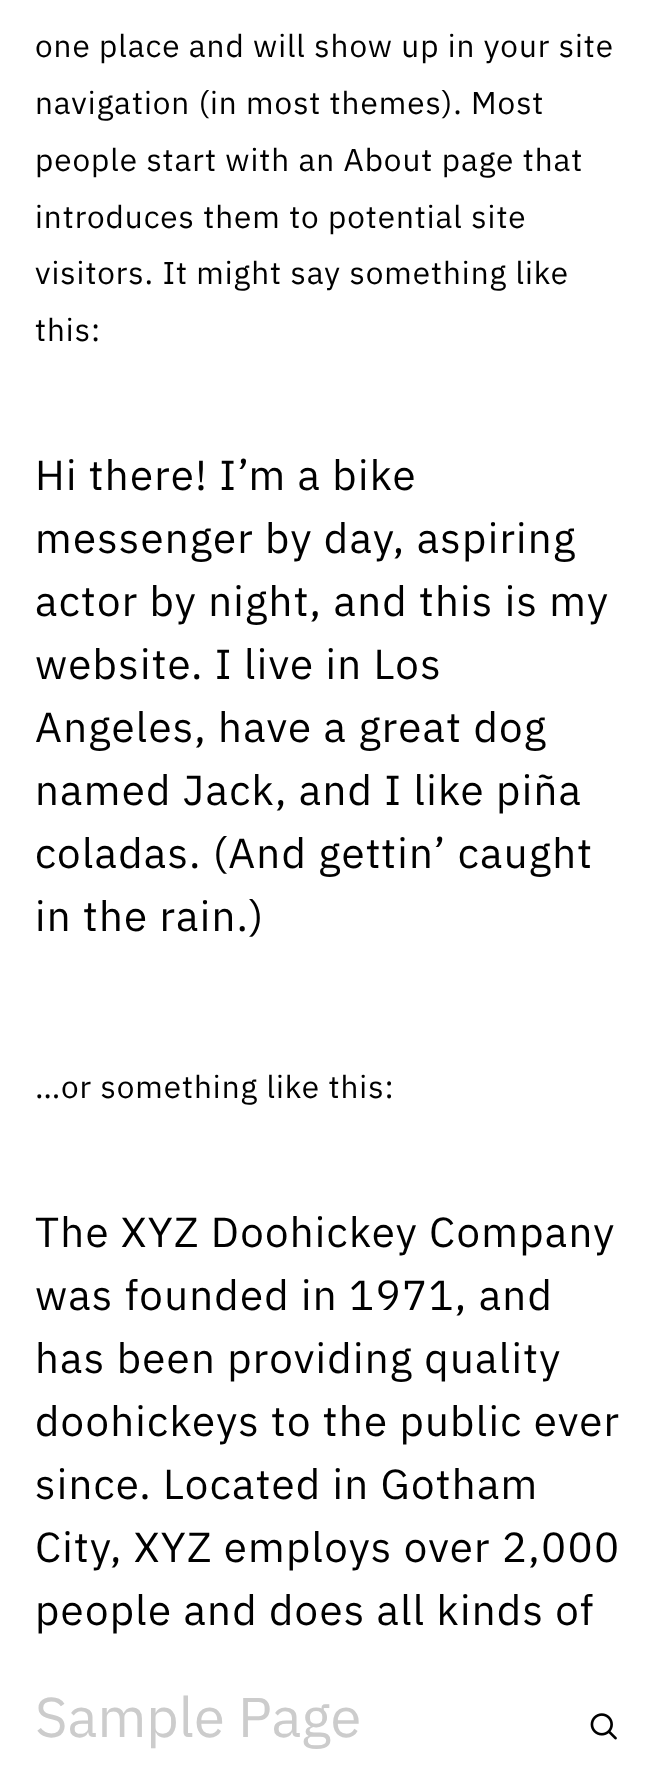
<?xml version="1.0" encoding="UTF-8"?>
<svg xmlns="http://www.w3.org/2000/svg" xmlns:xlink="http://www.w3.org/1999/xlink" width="655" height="1776">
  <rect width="100%" height="100%" fill="#ffffff" />
  <rect x="-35" y="1624" width="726" height="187" fill="#ffffff" filter="blur(17.5px)" />
  <image x="590" y="1713" width="27" height="27" xlink:href="image1.png" />
  <text x="35" y="57" style="font-family: IBM Plex Sans; font-size: 31.5px; letter-spacing: 0.95px; fill: #000000">one place and will show up in your site</text>
  <text x="35" y="114" style="font-family: IBM Plex Sans; font-size: 31.5px; letter-spacing: 0.95px; fill: #000000">navigation (in most themes). Most</text>
  <text x="35" y="171" style="font-family: IBM Plex Sans; font-size: 31.5px; letter-spacing: 0.95px; fill: #000000">people start with an About page that</text>
  <text x="35" y="228" style="font-family: IBM Plex Sans; font-size: 31.5px; letter-spacing: 0.95px; fill: #000000">introduces them to potential site</text>
  <text x="35" y="284" style="font-family: IBM Plex Sans; font-size: 31.5px; letter-spacing: 0.95px; fill: #000000">visitors. It might say something like</text>
  <text x="35" y="341" style="font-family: IBM Plex Sans; font-size: 31.5px; letter-spacing: 0.95px; fill: #000000">this:</text>
  <text x="35" y="490" style="font-family: IBM Plex Sans; font-size: 42px; letter-spacing: 1.25px; fill: #000000">Hi there! I’m a bike</text>
  <text x="35" y="553" style="font-family: IBM Plex Sans; font-size: 42px; letter-spacing: 1.25px; fill: #000000">messenger by day, aspiring</text>
  <text x="35" y="616" style="font-family: IBM Plex Sans; font-size: 42px; letter-spacing: 1.25px; fill: #000000">actor by night, and this is my</text>
  <text x="35" y="679" style="font-family: IBM Plex Sans; font-size: 42px; letter-spacing: 1.25px; fill: #000000">website. I live in Los</text>
  <text x="35" y="742" style="font-family: IBM Plex Sans; font-size: 42px; letter-spacing: 1.25px; fill: #000000">Angeles, have a great dog</text>
  <text x="35" y="805" style="font-family: IBM Plex Sans; font-size: 42px; letter-spacing: 1.25px; fill: #000000">named Jack, and I like piña</text>
  <text x="35" y="868" style="font-family: IBM Plex Sans; font-size: 42px; letter-spacing: 1.25px; fill: #000000">coladas. (And gettin’ caught</text>
  <text x="35" y="931" style="font-family: IBM Plex Sans; font-size: 42px; letter-spacing: 1.25px; fill: #000000">in the rain.)</text>
  <text x="35" y="1098" style="font-family: IBM Plex Sans; font-size: 31.5px; letter-spacing: 0.95px; fill: #000000">…or something like this:</text>
  <text x="35" y="1247" style="font-family: IBM Plex Sans; font-size: 42px; letter-spacing: 1.25px; fill: #000000">The XYZ Doohickey Company</text>
  <text x="35" y="1310" style="font-family: IBM Plex Sans; font-size: 42px; letter-spacing: 1.25px; fill: #000000">was founded in 1971, and</text>
  <text x="35" y="1373" style="font-family: IBM Plex Sans; font-size: 42px; letter-spacing: 1.25px; fill: #000000">has been providing quality</text>
  <text x="35" y="1436" style="font-family: IBM Plex Sans; font-size: 42px; letter-spacing: 1.25px; fill: #000000">doohickeys to the public ever</text>
  <text x="35" y="1499" style="font-family: IBM Plex Sans; font-size: 42px; letter-spacing: 1.25px; fill: #000000">since. Located in Gotham</text>
  <text x="35" y="1562" style="font-family: IBM Plex Sans; font-size: 42px; letter-spacing: 1.25px; fill: #000000">City, XYZ employs over 2,000</text>
  <text x="35" y="1625" style="font-family: IBM Plex Sans; font-size: 42px; letter-spacing: 1.25px; fill: #000000">people and does all kinds of</text>
  <text x="35" y="1737" style="font-family: IBM Plex Sans; font-size: 56px; fill: #cccccc">Sample Page</text>
</svg>
